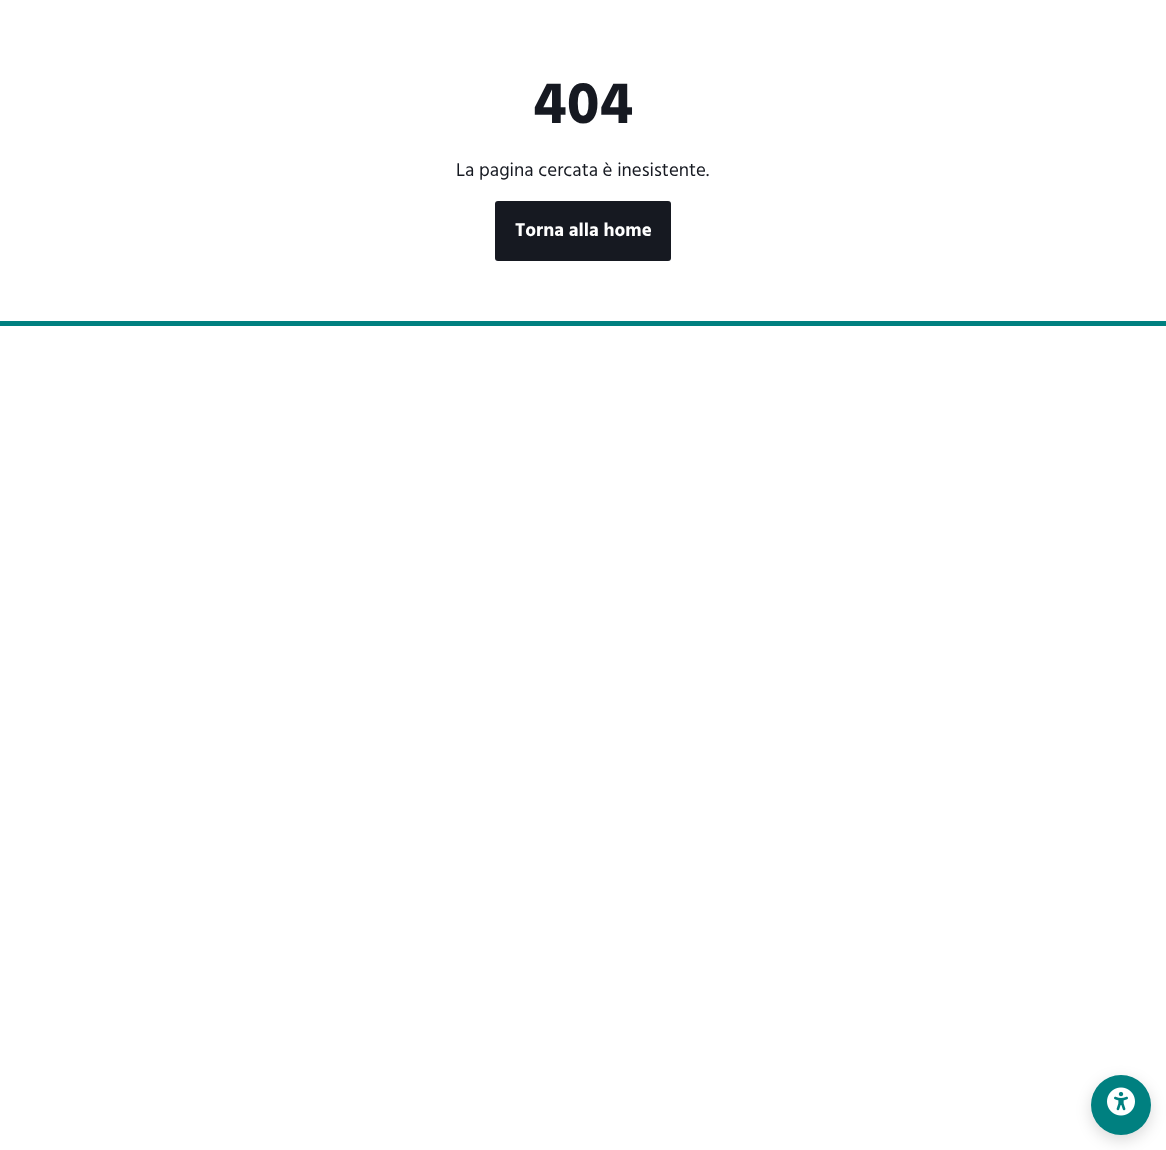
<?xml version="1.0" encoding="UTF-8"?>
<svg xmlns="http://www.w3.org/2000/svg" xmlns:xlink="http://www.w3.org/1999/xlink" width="1166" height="1150">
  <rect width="100%" height="100%" fill="#ffffff" />
  <rect x="495" y="201" width="176" height="60" rx="3" fill="#161921" />
  <rect y="321" width="1166" height="5" fill="#008080" />
  <rect x="1091" y="1080" width="60" height="60" rx="30" fill="#000000" fill-opacity="0.15" filter="blur(7.5px)" />
  <circle cx="1121" cy="1105" r="30" fill="#008080" />
  <image x="1107" y="1087" width="28" height="29" xlink:href="image1.png" />
  <text x="533" y="123" style="font-family: Hind; font-size: 60px; font-weight: bold; fill: #161921">404</text>
  <text x="456" y="176" style="font-family: Hind; font-size: 19px; fill: #161921">La pagina cercata è inesistente.</text>
  <text x="515" y="236" style="font-family: Hind; font-size: 19px; font-weight: bold; fill: #ffffff">Torna alla home</text>
</svg>
